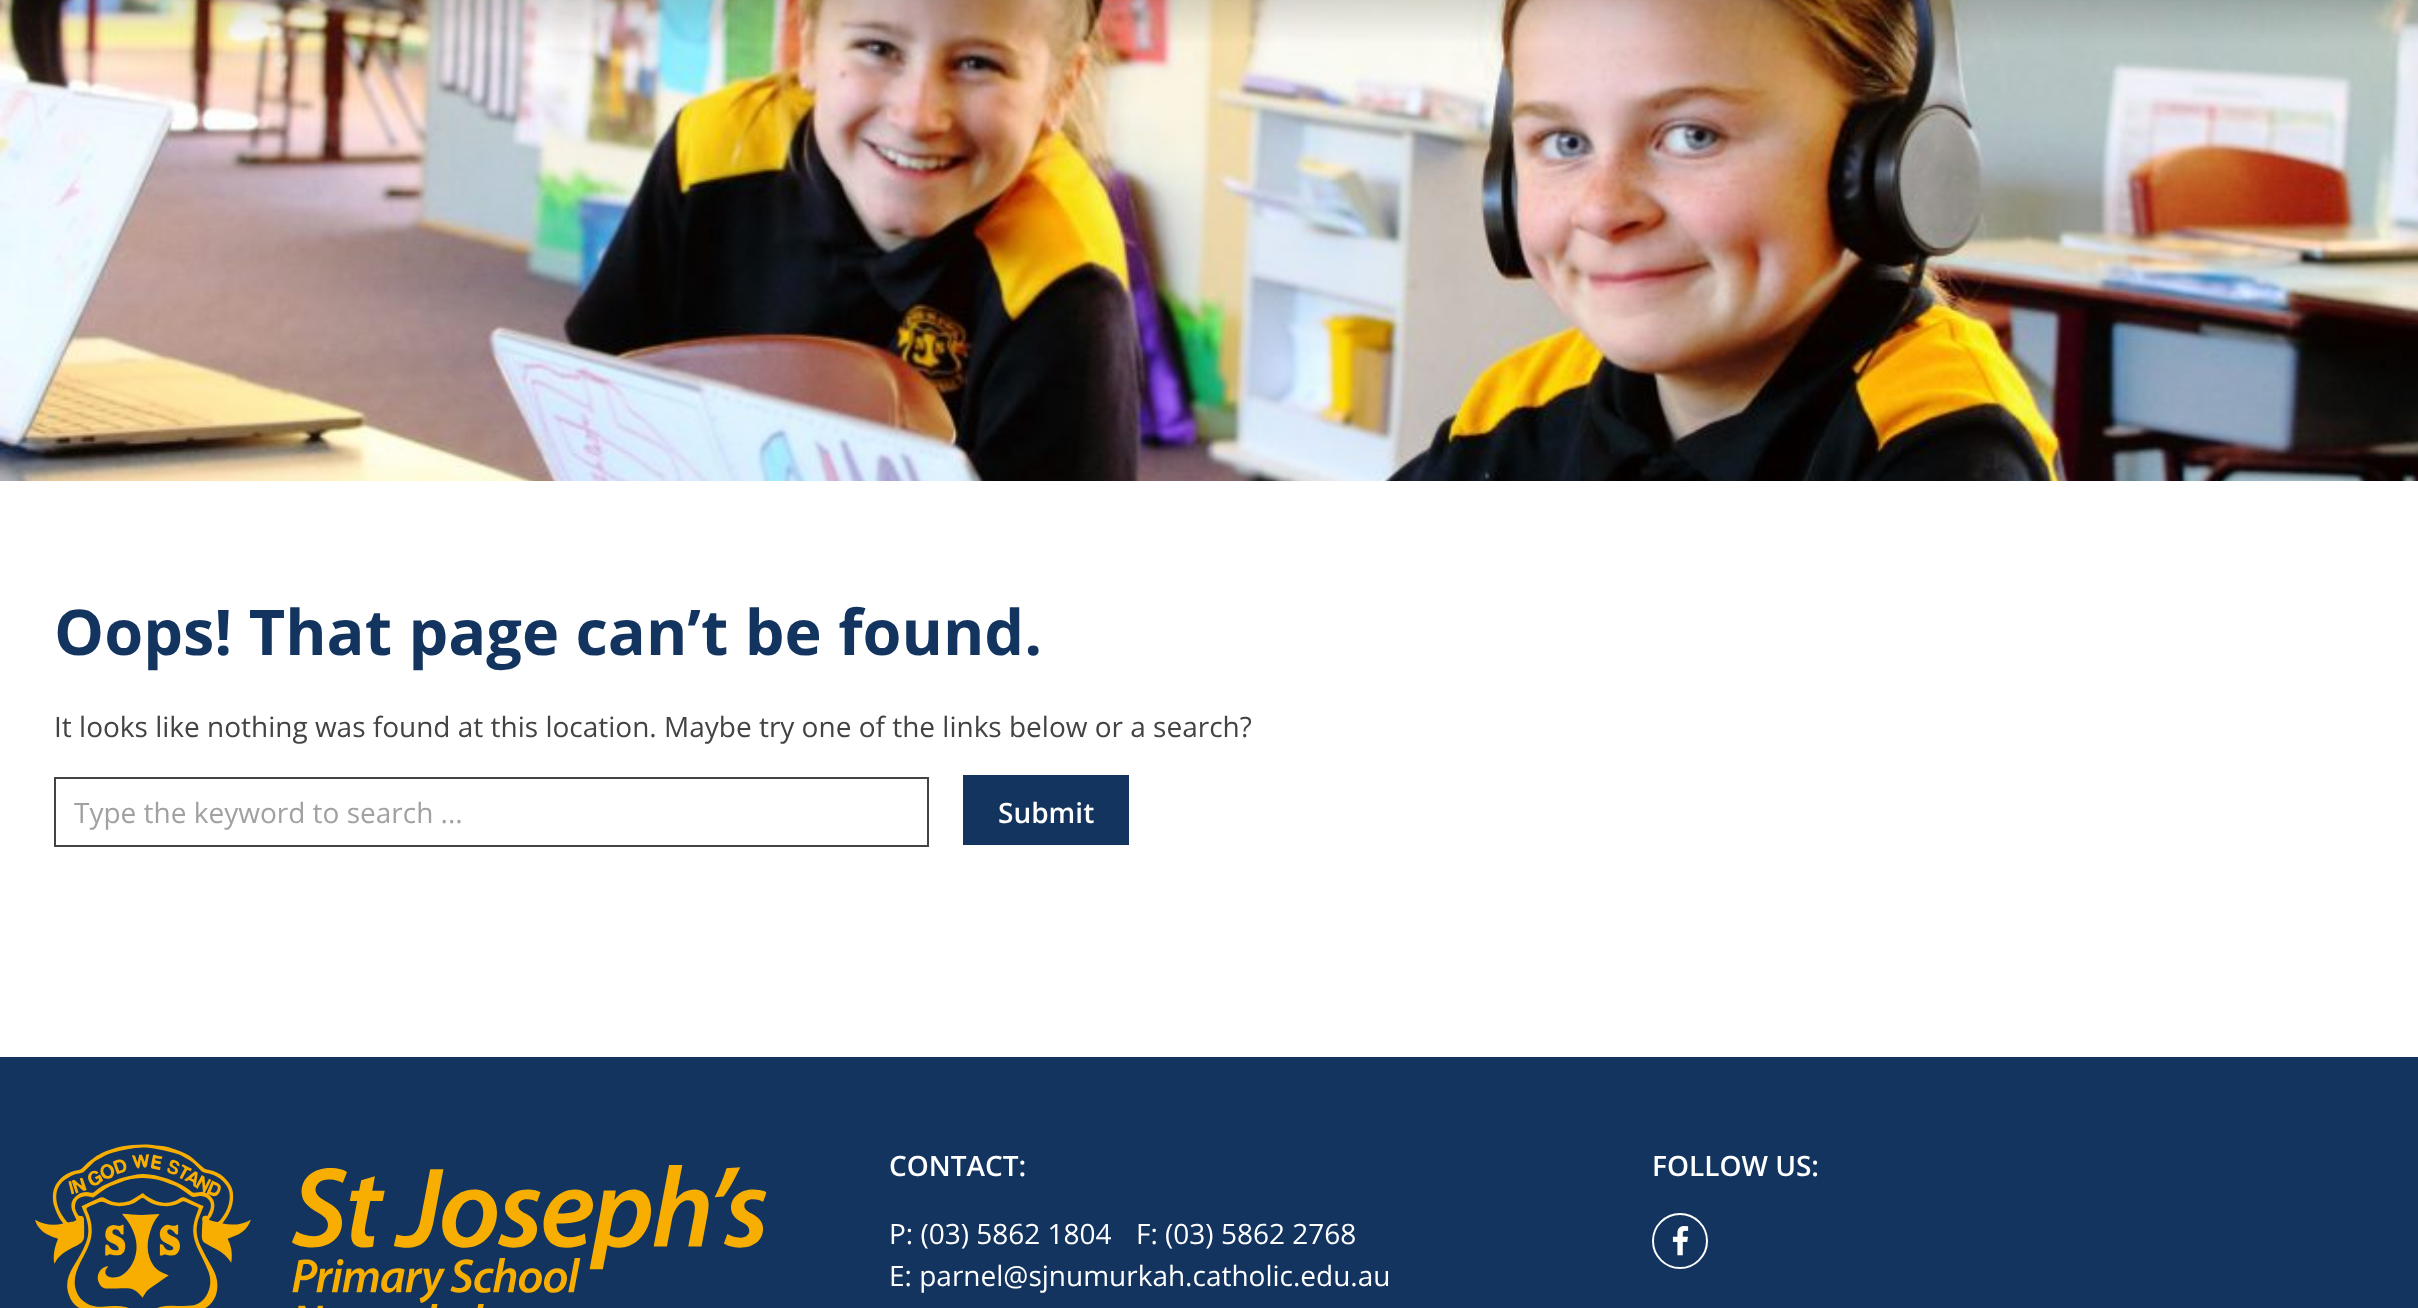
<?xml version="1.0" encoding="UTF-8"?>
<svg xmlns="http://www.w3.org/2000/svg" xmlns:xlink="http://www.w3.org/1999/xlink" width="2418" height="1308">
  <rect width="100%" height="100%" fill="#ffffff" />
  <image x="0" y="0" width="2418" height="481" xlink:href="image1.png" />
  <rect x="55" y="778" width="873" height="68" fill="none" stroke="#434343" stroke-width="2" />
  <rect x="963" y="775" width="166" height="70" fill="#12345f" />
  <rect y="1057" width="2418" height="251" fill="#12345f" />
  <image x="35" y="1144" width="732" height="164" xlink:href="image2.png" />
  <circle cx="1680" cy="1241" r="27" fill="none" stroke="#ffffff" stroke-width="2" />
  <image x="1672" y="1226" width="17" height="30" xlink:href="image3.png" />
  <text x="54" y="655" style="font-family: Open Sans; font-size: 63px; font-weight: bold; fill: #12345f">Oops! That page can’t be found.</text>
  <text x="54" y="737" style="font-family: Open Sans; font-size: 28px; fill: #434343">It looks like nothing was found at this location. Maybe try one of the links below or a search?</text>
  <text x="74" y="823" style="font-family: Open Sans; font-size: 28px; fill: #a1a1a1">Type the keyword to search ...</text>
  <text x="998" y="823" style="font-family: Open Sans; font-size: 28px; font-weight: 600; fill: #ffffff">Submit</text>
  <text x="889" y="1176" style="font-family: Open Sans; font-size: 28px; font-weight: 600; fill: #ffffff">CONTACT:</text>
  <text x="889" y="1244" style="font-family: Open Sans; font-size: 28px; fill: #ffffff">P: (03) 5862 1804</text>
  <text x="1136" y="1244" style="font-family: Open Sans; font-size: 28px; fill: #ffffff">F: (03) 5862 2768</text>
  <text x="889" y="1286" style="font-family: Open Sans; font-size: 28px; fill: #ffffff">E: parnel@sjnumurkah.catholic.edu.au</text>
  <text x="1652" y="1176" style="font-family: Open Sans; font-size: 28px; font-weight: 600; fill: #ffffff">FOLLOW US:</text>
</svg>
